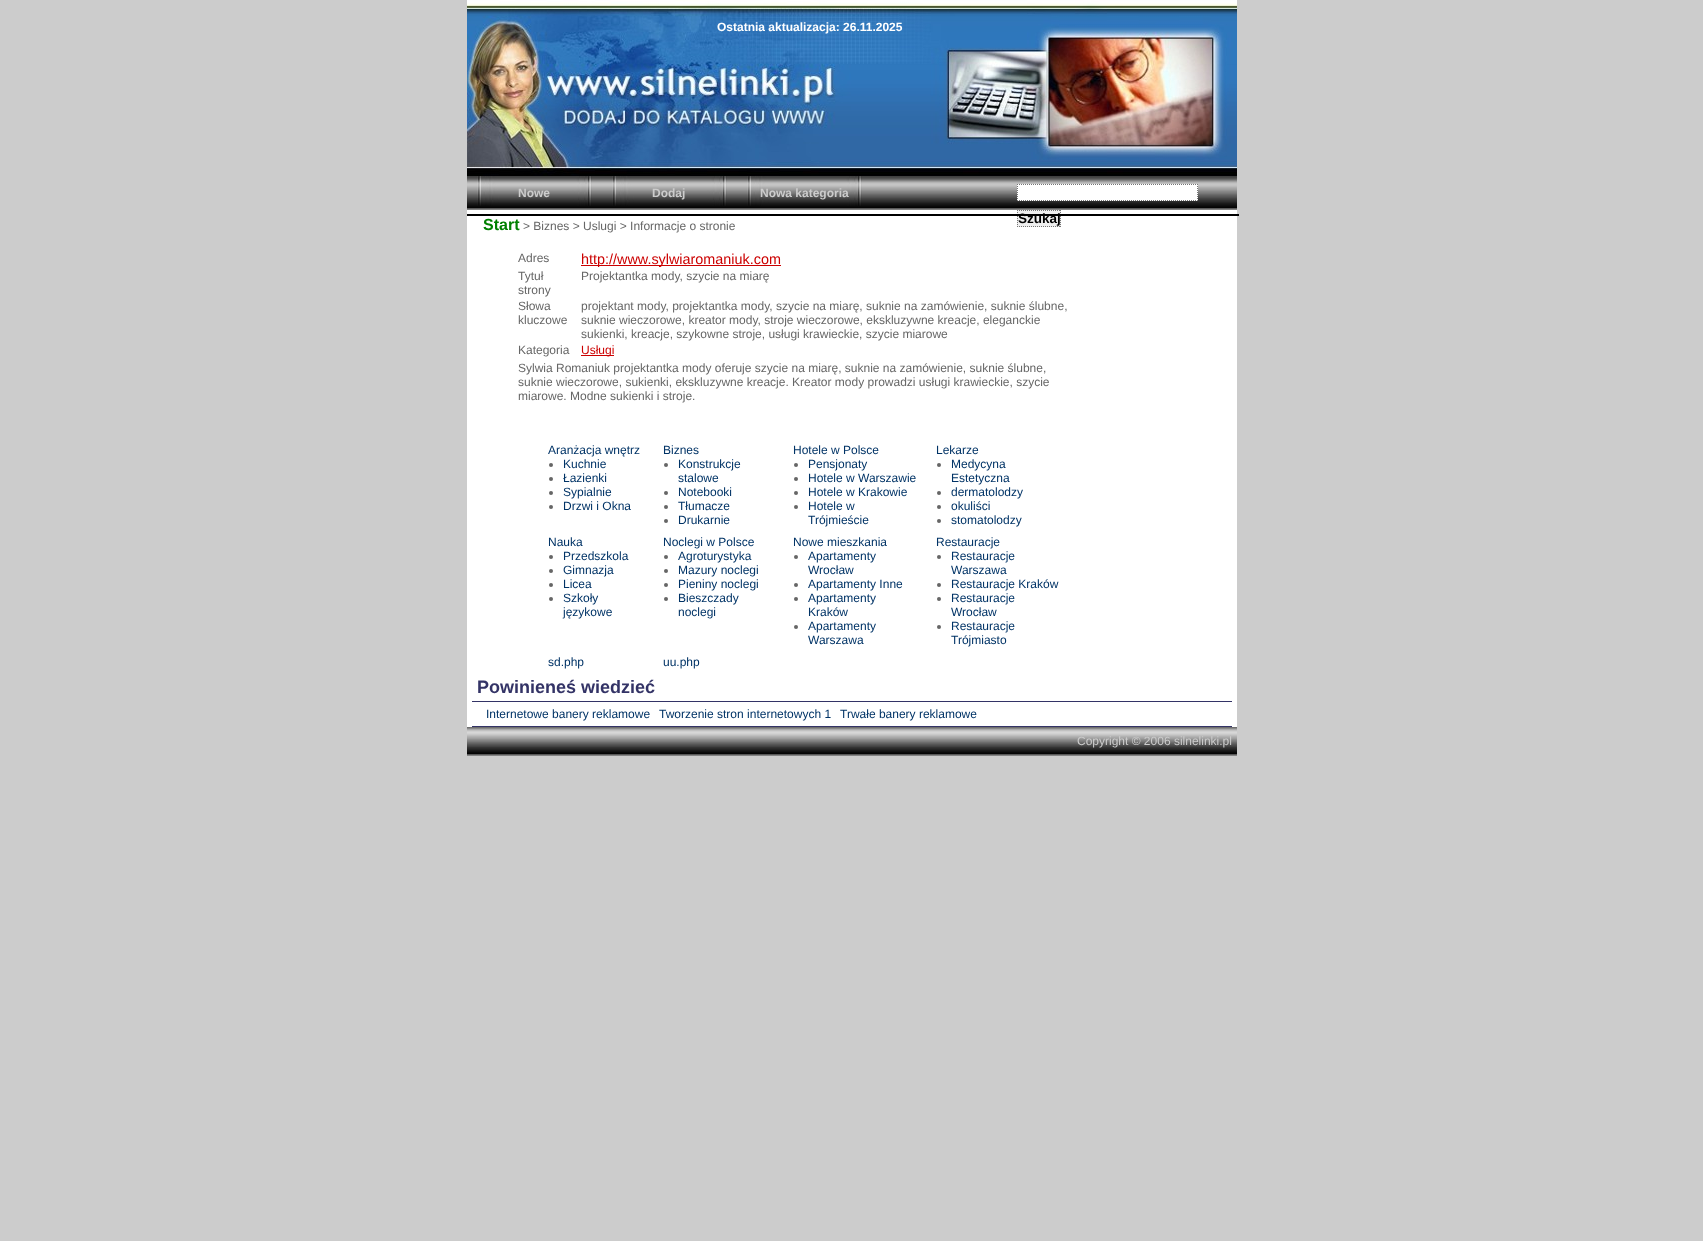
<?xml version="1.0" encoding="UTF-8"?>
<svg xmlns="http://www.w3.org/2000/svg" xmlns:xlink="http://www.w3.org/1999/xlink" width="1703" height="1241">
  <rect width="100%" height="100%" fill="#cccccc" />
  <image x="467" y="0" width="770" height="176" xlink:href="image1.png" />
  <image x="467" y="176" width="770" height="34" xlink:href="image2.png" />
  <image x="477" y="176" width="115" height="30" xlink:href="image3.png" />
  <image x="612" y="176" width="115" height="30" xlink:href="image3.png" />
  <image x="747" y="176" width="115" height="30" xlink:href="image3.png" />
  <rect x="1017" y="184" width="181" height="17" fill="#ffffff" />
  <path d="M 1017 184.5 h 181" fill="none" stroke="#757575" stroke-dasharray="1 1" />
  <path d="M 1197.5 184 v 17" fill="none" stroke="#757575" stroke-dasharray="1 1" />
  <path d="M 1017 200.5 h 181" fill="none" stroke="#757575" stroke-dasharray="1 1" />
  <path d="M 1017.5 184 v 17" fill="none" stroke="#757575" stroke-dasharray="1 1" />
  <rect x="467" y="210" width="770" height="517" fill="#ffffff" />
  <rect x="1017" y="210" width="44" height="17" fill="#efefef" />
  <path d="M 1017 210.5 h 44 m -0.5 -0.5 v 17 m -43.5 -0.5 h 44 m -43.5 -16.5 v 17" fill="none" stroke="#757575" stroke-dasharray="1 1" />
  <rect x="467" y="214" width="772" height="2" fill="#000000" />
  <rect x="581" y="265" width="200" height="1" fill="#cc0000" />
  <rect x="581" y="355" width="33" height="1" fill="#cc0000" />
  <circle cx="551" cy="465" r="2" fill="#666666" />
  <circle cx="551" cy="479" r="2" fill="#666666" />
  <circle cx="551" cy="493" r="2" fill="#666666" />
  <circle cx="551" cy="507" r="2" fill="#666666" />
  <circle cx="666" cy="465" r="2" fill="#666666" />
  <circle cx="666" cy="493" r="2" fill="#666666" />
  <circle cx="666" cy="507" r="2" fill="#666666" />
  <circle cx="666" cy="521" r="2" fill="#666666" />
  <circle cx="796" cy="465" r="2" fill="#666666" />
  <circle cx="796" cy="479" r="2" fill="#666666" />
  <circle cx="796" cy="493" r="2" fill="#666666" />
  <circle cx="796" cy="507" r="2" fill="#666666" />
  <circle cx="939" cy="465" r="2" fill="#666666" />
  <circle cx="939" cy="493" r="2" fill="#666666" />
  <circle cx="939" cy="507" r="2" fill="#666666" />
  <circle cx="939" cy="521" r="2" fill="#666666" />
  <circle cx="551" cy="557" r="2" fill="#666666" />
  <circle cx="551" cy="571" r="2" fill="#666666" />
  <circle cx="551" cy="585" r="2" fill="#666666" />
  <circle cx="551" cy="599" r="2" fill="#666666" />
  <circle cx="666" cy="557" r="2" fill="#666666" />
  <circle cx="666" cy="571" r="2" fill="#666666" />
  <circle cx="666" cy="585" r="2" fill="#666666" />
  <circle cx="666" cy="599" r="2" fill="#666666" />
  <circle cx="796" cy="557" r="2" fill="#666666" />
  <circle cx="796" cy="585" r="2" fill="#666666" />
  <circle cx="796" cy="599" r="2" fill="#666666" />
  <circle cx="796" cy="627" r="2" fill="#666666" />
  <circle cx="939" cy="557" r="2" fill="#666666" />
  <circle cx="939" cy="585" r="2" fill="#666666" />
  <circle cx="939" cy="599" r="2" fill="#666666" />
  <circle cx="939" cy="627" r="2" fill="#666666" />
  <rect x="472" y="701" width="760" height="1" fill="#333366" />
  <rect x="472" y="726" width="760" height="1" fill="#333366" />
  <image x="467" y="727" width="770" height="29" xlink:href="image4.png" />
  <text x="717" y="31" style="font-family: Liberation Sans; font-size: 12px; font-weight: bold; fill: #ffffff">Ostatnia aktualizacja: 26.11.2025</text>
  <text x="518" y="197" style="font-family: Liberation Sans; font-size: 12px; font-weight: bold; fill: #cccccc">Nowe</text>
  <text x="652" y="197" style="font-family: Liberation Sans; font-size: 12px; font-weight: bold; fill: #cccccc">Dodaj</text>
  <text x="760" y="197" style="font-family: Liberation Sans; font-size: 12px; font-weight: bold; fill: #cccccc">Nowa kategoria</text>
  <text x="1018" y="223" style="font-family: Liberation Sans; font-size: 13.5px; font-weight: bold; fill: #000000">Szukaj</text>
  <text x="483" y="230" style="font-family: Liberation Sans; font-size: 16px; font-weight: bold; fill: #008000">Start</text>
  <text x="523" y="230" style="font-family: Liberation Sans; font-size: 12px; fill: #666666">&gt; Biznes &gt; Uslugi &gt; Informacje o stronie</text>
  <text x="518" y="262" style="font-family: Liberation Sans; font-size: 12px; fill: #666666">Adres</text>
  <text x="581" y="264" style="font-family: Liberation Sans; font-size: 14.4px; fill: #cc0000">http://www.sylwiaromaniuk.com</text>
  <text x="518" y="280" style="font-family: Liberation Sans; font-size: 12px; fill: #666666">Tytuł</text>
  <text x="518" y="294" style="font-family: Liberation Sans; font-size: 12px; fill: #666666">strony</text>
  <text x="581" y="280" style="font-family: Liberation Sans; font-size: 12px; fill: #666666">Projektantka mody, szycie na miarę</text>
  <text x="518" y="310" style="font-family: Liberation Sans; font-size: 12px; fill: #666666">Słowa</text>
  <text x="518" y="324" style="font-family: Liberation Sans; font-size: 12px; fill: #666666">kluczowe</text>
  <text x="581" y="310" style="font-family: Liberation Sans; font-size: 12px; fill: #666666">projektant mody, projektantka mody, szycie na miarę, suknie na zamówienie, suknie ślubne,</text>
  <text x="581" y="324" style="font-family: Liberation Sans; font-size: 12px; fill: #666666">suknie wieczorowe, kreator mody, stroje wieczorowe, ekskluzywne kreacje, eleganckie</text>
  <text x="581" y="338" style="font-family: Liberation Sans; font-size: 12px; fill: #666666">sukienki, kreacje, szykowne stroje, usługi krawieckie, szycie miarowe</text>
  <text x="518" y="354" style="font-family: Liberation Sans; font-size: 12px; fill: #666666">Kategoria</text>
  <text x="581" y="354" style="font-family: Liberation Sans; font-size: 12px; fill: #cc0000">Usługi</text>
  <text x="518" y="372" style="font-family: Liberation Sans; font-size: 12px; fill: #666666">Sylwia Romaniuk projektantka mody oferuje szycie na miarę, suknie na zamówienie, suknie ślubne,</text>
  <text x="518" y="386" style="font-family: Liberation Sans; font-size: 12px; fill: #666666">suknie wieczorowe, sukienki, ekskluzywne kreacje. Kreator mody prowadzi usługi krawieckie, szycie</text>
  <text x="518" y="400" style="font-family: Liberation Sans; font-size: 12px; fill: #666666">miarowe. Modne sukienki i stroje.</text>
  <text x="548" y="454" style="font-family: Liberation Sans; font-size: 12px; fill: #003366">Aranżacja wnętrz</text>
  <text x="563" y="468" style="font-family: Liberation Sans; font-size: 12px; fill: #003366">Kuchnie</text>
  <text x="563" y="482" style="font-family: Liberation Sans; font-size: 12px; fill: #003366">Łazienki</text>
  <text x="563" y="496" style="font-family: Liberation Sans; font-size: 12px; fill: #003366">Sypialnie</text>
  <text x="563" y="510" style="font-family: Liberation Sans; font-size: 12px; fill: #003366">Drzwi i Okna</text>
  <text x="663" y="454" style="font-family: Liberation Sans; font-size: 12px; fill: #003366">Biznes</text>
  <text x="678" y="468" style="font-family: Liberation Sans; font-size: 12px; fill: #003366">Konstrukcje</text>
  <text x="678" y="482" style="font-family: Liberation Sans; font-size: 12px; fill: #003366">stalowe</text>
  <text x="678" y="496" style="font-family: Liberation Sans; font-size: 12px; fill: #003366">Notebooki</text>
  <text x="678" y="510" style="font-family: Liberation Sans; font-size: 12px; fill: #003366">Tłumacze</text>
  <text x="678" y="524" style="font-family: Liberation Sans; font-size: 12px; fill: #003366">Drukarnie</text>
  <text x="793" y="454" style="font-family: Liberation Sans; font-size: 12px; fill: #003366">Hotele w Polsce</text>
  <text x="808" y="468" style="font-family: Liberation Sans; font-size: 12px; fill: #003366">Pensjonaty</text>
  <text x="808" y="482" style="font-family: Liberation Sans; font-size: 12px; fill: #003366">Hotele w Warszawie</text>
  <text x="808" y="496" style="font-family: Liberation Sans; font-size: 12px; fill: #003366">Hotele w Krakowie</text>
  <text x="808" y="510" style="font-family: Liberation Sans; font-size: 12px; fill: #003366">Hotele w</text>
  <text x="808" y="524" style="font-family: Liberation Sans; font-size: 12px; fill: #003366">Trójmieście</text>
  <text x="936" y="454" style="font-family: Liberation Sans; font-size: 12px; fill: #003366">Lekarze</text>
  <text x="951" y="468" style="font-family: Liberation Sans; font-size: 12px; fill: #003366">Medycyna</text>
  <text x="951" y="482" style="font-family: Liberation Sans; font-size: 12px; fill: #003366">Estetyczna</text>
  <text x="951" y="496" style="font-family: Liberation Sans; font-size: 12px; fill: #003366">dermatolodzy</text>
  <text x="951" y="510" style="font-family: Liberation Sans; font-size: 12px; fill: #003366">okuliści</text>
  <text x="951" y="524" style="font-family: Liberation Sans; font-size: 12px; fill: #003366">stomatolodzy</text>
  <text x="548" y="546" style="font-family: Liberation Sans; font-size: 12px; fill: #003366">Nauka</text>
  <text x="563" y="560" style="font-family: Liberation Sans; font-size: 12px; fill: #003366">Przedszkola</text>
  <text x="563" y="574" style="font-family: Liberation Sans; font-size: 12px; fill: #003366">Gimnazja</text>
  <text x="563" y="588" style="font-family: Liberation Sans; font-size: 12px; fill: #003366">Licea</text>
  <text x="563" y="602" style="font-family: Liberation Sans; font-size: 12px; fill: #003366">Szkoły</text>
  <text x="563" y="616" style="font-family: Liberation Sans; font-size: 12px; fill: #003366">językowe</text>
  <text x="663" y="546" style="font-family: Liberation Sans; font-size: 12px; fill: #003366">Noclegi w Polsce</text>
  <text x="678" y="560" style="font-family: Liberation Sans; font-size: 12px; fill: #003366">Agroturystyka</text>
  <text x="678" y="574" style="font-family: Liberation Sans; font-size: 12px; fill: #003366">Mazury noclegi</text>
  <text x="678" y="588" style="font-family: Liberation Sans; font-size: 12px; fill: #003366">Pieniny noclegi</text>
  <text x="678" y="602" style="font-family: Liberation Sans; font-size: 12px; fill: #003366">Bieszczady</text>
  <text x="678" y="616" style="font-family: Liberation Sans; font-size: 12px; fill: #003366">noclegi</text>
  <text x="793" y="546" style="font-family: Liberation Sans; font-size: 12px; fill: #003366">Nowe mieszkania</text>
  <text x="808" y="560" style="font-family: Liberation Sans; font-size: 12px; fill: #003366">Apartamenty</text>
  <text x="808" y="574" style="font-family: Liberation Sans; font-size: 12px; fill: #003366">Wrocław</text>
  <text x="808" y="588" style="font-family: Liberation Sans; font-size: 12px; fill: #003366">Apartamenty Inne</text>
  <text x="808" y="602" style="font-family: Liberation Sans; font-size: 12px; fill: #003366">Apartamenty</text>
  <text x="808" y="616" style="font-family: Liberation Sans; font-size: 12px; fill: #003366">Kraków</text>
  <text x="808" y="630" style="font-family: Liberation Sans; font-size: 12px; fill: #003366">Apartamenty</text>
  <text x="808" y="644" style="font-family: Liberation Sans; font-size: 12px; fill: #003366">Warszawa</text>
  <text x="936" y="546" style="font-family: Liberation Sans; font-size: 12px; fill: #003366">Restauracje</text>
  <text x="951" y="560" style="font-family: Liberation Sans; font-size: 12px; fill: #003366">Restauracje</text>
  <text x="951" y="574" style="font-family: Liberation Sans; font-size: 12px; fill: #003366">Warszawa</text>
  <text x="951" y="588" style="font-family: Liberation Sans; font-size: 12px; fill: #003366">Restauracje Kraków</text>
  <text x="951" y="602" style="font-family: Liberation Sans; font-size: 12px; fill: #003366">Restauracje</text>
  <text x="951" y="616" style="font-family: Liberation Sans; font-size: 12px; fill: #003366">Wrocław</text>
  <text x="951" y="630" style="font-family: Liberation Sans; font-size: 12px; fill: #003366">Restauracje</text>
  <text x="951" y="644" style="font-family: Liberation Sans; font-size: 12px; fill: #003366">Trójmiasto</text>
  <text x="548" y="666" style="font-family: Liberation Sans; font-size: 12px; fill: #003366">sd.php</text>
  <text x="663" y="666" style="font-family: Liberation Sans; font-size: 12px; fill: #003366">uu.php</text>
  <text x="477" y="693" style="font-family: Liberation Sans; font-size: 18px; font-weight: bold; fill: #333366">Powinieneś wiedzieć</text>
  <text x="486" y="718" style="font-family: Liberation Sans; font-size: 12px; fill: #003366">Internetowe banery reklamowe</text>
  <text x="659" y="718" style="font-family: Liberation Sans; font-size: 12px; fill: #003366">Tworzenie stron internetowych 1</text>
  <text x="840" y="718" style="font-family: Liberation Sans; font-size: 12px; fill: #003366">Trwałe banery reklamowe</text>
  <text x="1077" y="745" style="font-family: Liberation Sans; font-size: 12px; fill: #cccccc">Copyright © 2006 silnelinki.pl</text>
</svg>
